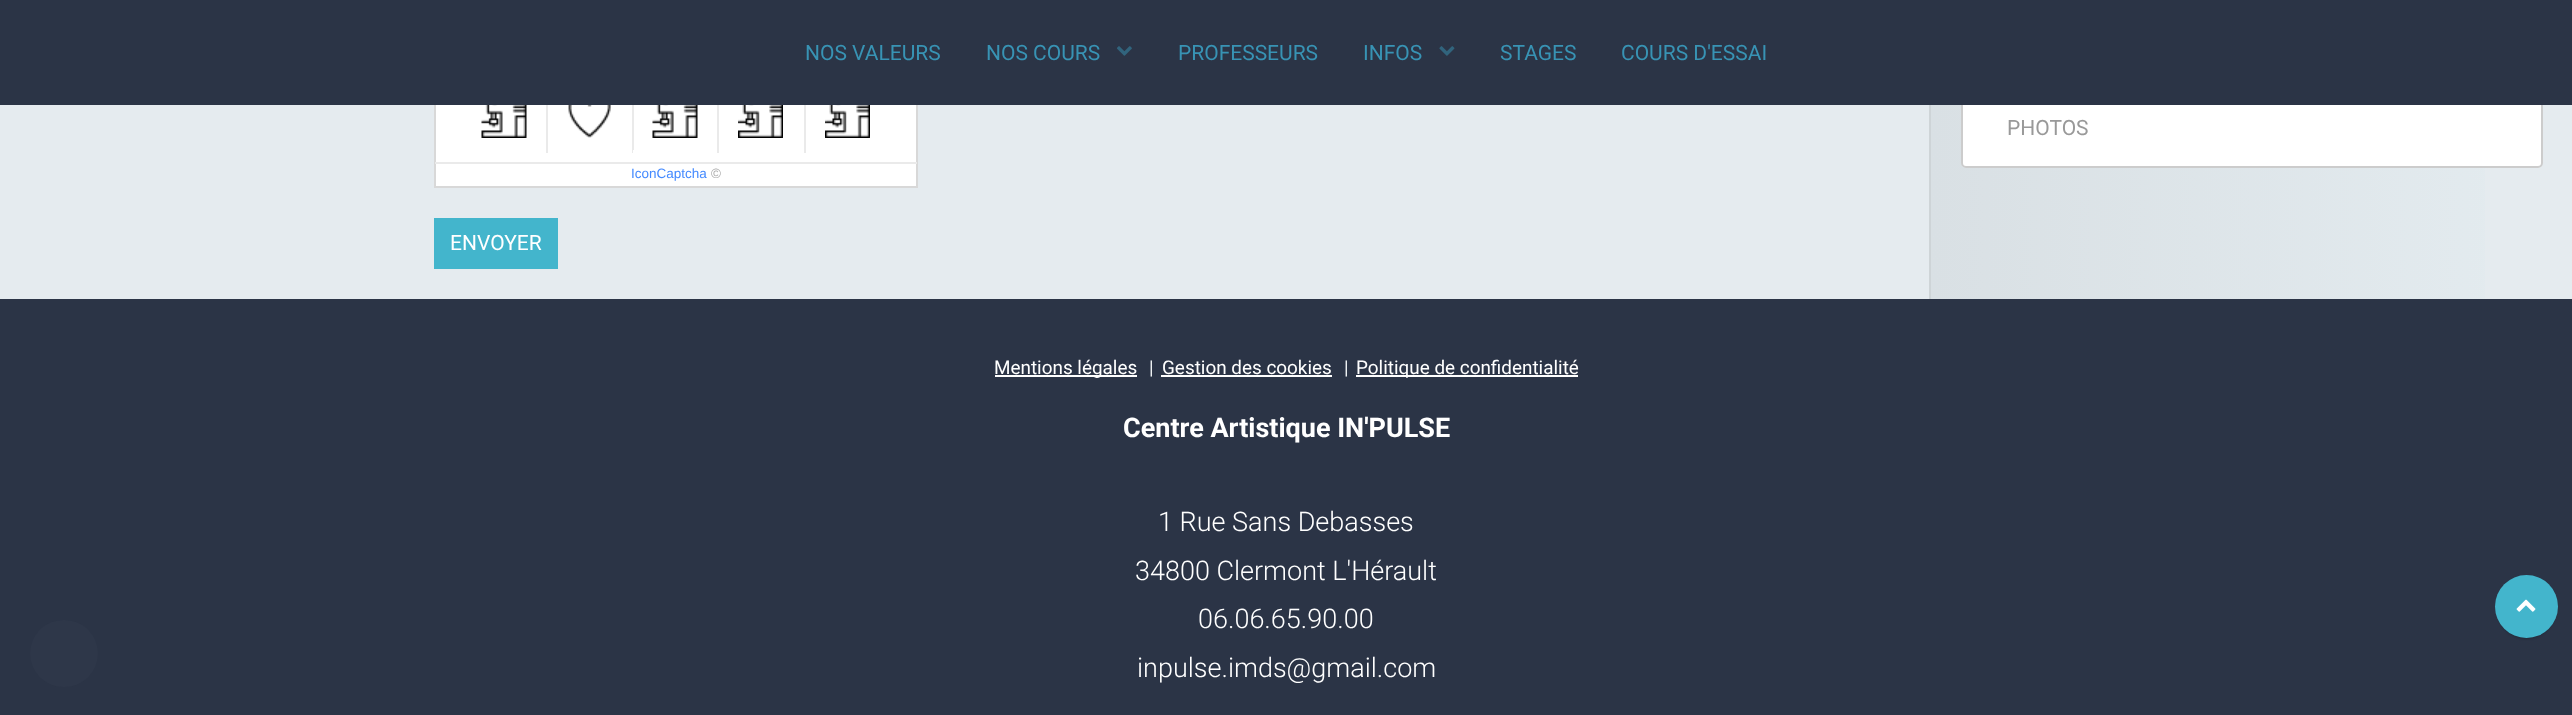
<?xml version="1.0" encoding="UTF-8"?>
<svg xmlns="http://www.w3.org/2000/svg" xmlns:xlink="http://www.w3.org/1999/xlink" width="2572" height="715">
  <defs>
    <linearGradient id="g1" gradientUnits="userSpaceOnUse" x1="1931" y1="-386" x2="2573" y2="-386"><stop offset="0" stop-color="#d9e0e4" /><stop offset="1" stop-color="#e4ecf0" /></linearGradient>
  </defs>
  <rect width="100%" height="100%" fill="#e5ebef" />
  <rect x="1931" y="105" width="554" height="194" fill="url(#g1)" />
  <rect x="1961" y="27" width="582" height="141" rx="5" fill="#ffffff" />
  <rect x="1962" y="28" width="580" height="139" rx="4" fill="none" stroke="#000000" stroke-opacity="0.2" stroke-width="2" />
  <rect x="436" y="105" width="480" height="81" fill="#ffffff" />
  <rect x="435" y="19" width="482" height="168" fill="none" stroke="#d8d8d8" stroke-width="2" />
  <rect width="2572" height="105" fill="#2b3446" />
  <image x="1117" y="46" width="15" height="10" xlink:href="image1.png" />
  <image x="1439" y="46" width="16" height="10" xlink:href="image2.png" />
  <rect x="1929" y="105" width="2" height="194" fill="#ced4d7" />
  <image x="481" y="105" width="46" height="33" xlink:href="image3.png" />
  <rect x="546" y="105" width="2" height="48" fill="#eaeaea" />
  <image x="568" y="105" width="43" height="33" xlink:href="image4.png" />
  <rect x="632" y="105" width="2" height="48" fill="#eaeaea" />
  <image x="652" y="105" width="46" height="33" xlink:href="image5.png" />
  <rect x="717" y="105" width="2" height="48" fill="#eaeaea" />
  <rect x="633" y="150" width="1" height="3" fill="#ffffff" />
  <image x="738" y="105" width="45" height="33" xlink:href="image6.png" />
  <rect x="804" y="105" width="2" height="48" fill="#eaeaea" />
  <image x="825" y="105" width="45" height="33" xlink:href="image7.png" />
  <rect x="435" y="162" width="482" height="2" fill="#eaeaea" />
  <rect x="434" y="218" width="124" height="51" fill="#43b5cc" />
  <rect y="299" width="2572" height="416" fill="#2b3446" />
  <rect x="995" y="375" width="142" height="2" fill="#ffffff" />
  <rect x="1161" y="375" width="171" height="2" fill="#ffffff" />
  <rect x="1356" y="375" width="222" height="2" fill="#ffffff" />
  <rect x="2498" y="582" width="57" height="57" rx="28.5" fill="#000000" fill-opacity="0.2" filter="blur(1px)" />
  <circle cx="2526.5" cy="606.5" r="31.5" fill="#43b5cc" />
  <image x="2516" y="599" width="20" height="13" xlink:href="image8.png" />
  <rect x="30" y="620" width="68" height="67" rx="33.5" fill="#2e3749" />
  <text x="805" y="60" style="font-family: Roboto; font-size: 21px; fill: #3893b4">NOS VALEURS</text>
  <text x="986" y="60" style="font-family: Roboto; font-size: 21px; fill: #3893b4">NOS COURS</text>
  <text x="1178" y="60" style="font-family: Roboto; font-size: 21px; fill: #3893b4">PROFESSEURS</text>
  <text x="1363" y="60" style="font-family: Roboto; font-size: 21px; fill: #3893b4">INFOS</text>
  <text x="1500" y="60" style="font-family: Roboto; font-size: 21px; fill: #3893b4">STAGES</text>
  <text x="1621" y="60" style="font-family: Roboto; font-size: 21px; fill: #3893b4">COURS D'ESSAI</text>
  <text x="2007" y="135" style="font-family: Roboto; font-size: 21px; fill: #999999">PHOTOS</text>
  <text x="631" y="178" style="font-family: Liberation Sans; font-size: 13.5px; fill: #448aff">IconCaptcha</text>
  <text x="711" y="178" style="font-family: Liberation Sans; font-size: 13.5px; fill: #a7a7a7">©</text>
  <text x="450" y="250" style="font-family: Roboto; font-size: 21px; fill: #ffffff">ENVOYER</text>
  <text x="994" y="374" style="font-family: Roboto; font-size: 18.9px; fill: #ffffff">Mentions légales</text>
  <text x="1149" y="374" style="font-family: Roboto; font-size: 18.9px; fill: #ecf0f1">|</text>
  <text x="1162" y="374" style="font-family: Roboto; font-size: 18.9px; fill: #ffffff">Gestion des cookies</text>
  <text x="1344" y="374" style="font-family: Roboto; font-size: 18.9px; fill: #ecf0f1">|</text>
  <text x="1356" y="374" style="font-family: Roboto; font-size: 18.9px; fill: #ffffff">Politique de confidentialité</text>
  <text x="1123" y="437" style="font-family: Roboto; font-size: 27px; font-weight: bold; fill: #ffffff">Centre Artistique IN'PULSE</text>
  <text x="1158" y="531" style="font-family: Roboto; font-size: 27px; font-weight: 300; fill: #ffffff">1 Rue Sans Debasses</text>
  <text x="1135" y="580" style="font-family: Roboto; font-size: 27px; font-weight: 300; fill: #ffffff">34800 Clermont L'Hérault</text>
  <text x="1198" y="628" style="font-family: Roboto; font-size: 27px; font-weight: 300; fill: #ffffff">06.06.65.90.00</text>
  <text x="1137" y="677" style="font-family: Roboto; font-size: 27px; font-weight: 300; fill: #ffffff">inpulse.imds@gmail.com</text>
</svg>
